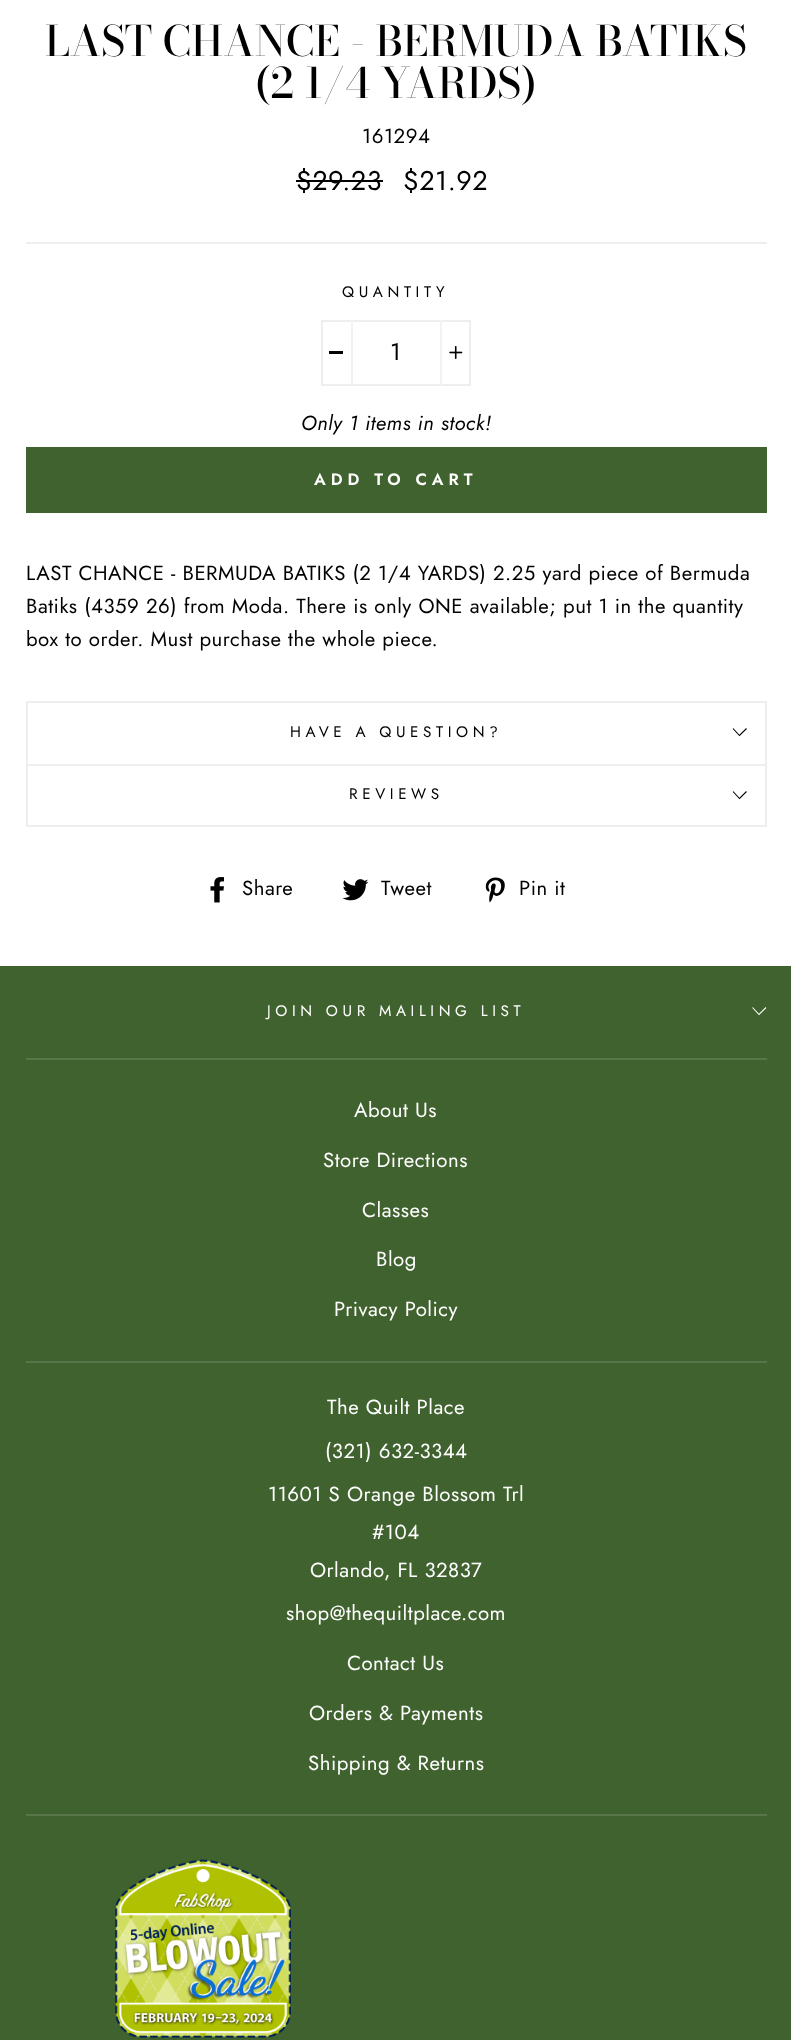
<?xml version="1.0" encoding="UTF-8"?>
<svg xmlns="http://www.w3.org/2000/svg" xmlns:xlink="http://www.w3.org/1999/xlink" width="791" height="2040">
  <rect width="100%" height="100%" fill="#ffffff" />
  <rect x="296" y="180" width="87" height="2" fill="#000000" />
  <rect x="26" y="242" width="741" height="2" fill="#eeeeee" />
  <rect x="322" y="321" width="148" height="64" fill="none" stroke="#eeeeee" stroke-width="2" />
  <rect x="351" y="320" width="2" height="66" fill="#f2f2f2" />
  <rect x="329" y="351" width="14" height="3" fill="#000000" />
  <rect x="440" y="320" width="2" height="66" fill="#f2f2f2" />
  <image x="449" y="346" width="14" height="13" xlink:href="image1.png" />
  <rect x="26" y="447" width="741" height="66" fill="#40622f" />
  <rect x="26" y="825" width="741" height="2" fill="#eeeeee" />
  <rect x="26" y="701" width="741" height="2" fill="#eeeeee" />
  <rect x="765" y="701" width="2" height="63" fill="#eeeeee" />
  <rect x="26" y="701" width="2" height="63" fill="#eeeeee" />
  <path d="M 733 728.5 l 6.5 7 l 7 -7" fill="none" stroke="#000000" stroke-width="1.1" />
  <rect x="26" y="764" width="741" height="2" fill="#eeeeee" />
  <rect x="765" y="764" width="2" height="61" fill="#eeeeee" />
  <rect x="26" y="764" width="2" height="61" fill="#eeeeee" />
  <path d="M 733 791.5 l 6.5 7 l 7 -7" fill="none" stroke="#000000" stroke-width="1.1" />
  <image x="210" y="877" width="14" height="26" xlink:href="image2.png" />
  <image x="342" y="879" width="27" height="22" xlink:href="image3.png" />
  <image x="485" y="877" width="20" height="26" xlink:href="image4.png" />
  <rect y="966" width="791" height="1074" fill="#40622f" />
  <path d="M 752.5 1007.5 l 6.5 7 l 7 -7" fill="none" stroke="#ffffff" stroke-width="1.1" />
  <rect x="26" y="1058" width="741" height="2" fill="#577548" />
  <rect x="26" y="1361" width="741" height="2" fill="#577548" />
  <rect x="26" y="1814" width="741" height="2" fill="#577548" />
  <image x="115" y="1859" width="176" height="179" xlink:href="image5.png" />
  <text x="45" y="56" style="font-family: Bodoni Moda; font-size: 41.7px; font-weight: 500; fill: #000000">LAST CHANCE - BERMUDA BATIKS</text>
  <text x="255" y="98" style="font-family: Bodoni Moda; font-size: 41.7px; font-weight: 500; fill: #000000">(2 1/4 YARDS)</text>
  <text x="362" y="143" style="font-family: Jost; font-size: 20.4px; letter-spacing: 0.5px; fill: #000000">161294</text>
  <text x="296" y="190" style="font-family: Jost; font-size: 27px; letter-spacing: 0.5px; fill: #000000">$29.23</text>
  <text x="403" y="190" style="font-family: Jost; font-size: 27px; letter-spacing: 0.5px; fill: #000000">$21.92</text>
  <text x="342" y="297" style="font-family: Jost; font-size: 15.25px; letter-spacing: 4.6px; fill: #000000">QUANTITY</text>
  <text x="390" y="360" style="font-family: Jost; font-size: 24px; letter-spacing: 1px; fill: #000000">1</text>
  <text x="301" y="430" style="font-family: Jost; font-size: 20.4px; font-style: italic; letter-spacing: 0.5px; fill: #000000">Only 1 items in stock!</text>
  <text x="314" y="485" style="font-family: Jost; font-size: 16.5px; font-weight: 600; letter-spacing: 5px; fill: #ffffff">ADD TO CART</text>
  <text x="26" y="580" style="font-family: Jost; font-size: 20.4px; letter-spacing: 0.5px; fill: #000000">LAST CHANCE - BERMUDA BATIKS (2 1/4 YARDS) 2.25 yard piece of Bermuda</text>
  <text x="26" y="613" style="font-family: Jost; font-size: 20.4px; letter-spacing: 0.5px; fill: #000000">Batiks (4359 26) from Moda. There is only ONE available; put 1 in the quantity</text>
  <text x="26" y="646" style="font-family: Jost; font-size: 20.4px; letter-spacing: 0.5px; fill: #000000">box to order. Must purchase the whole piece.</text>
  <text x="290" y="737" style="font-family: Jost; font-size: 15.25px; letter-spacing: 4.6px; fill: #000000">HAVE A QUESTION?</text>
  <text x="349" y="799" style="font-family: Jost; font-size: 15.25px; letter-spacing: 4.6px; fill: #000000">REVIEWS</text>
  <text x="242" y="895" style="font-family: Jost; font-size: 20.4px; letter-spacing: 0.5px; fill: #000000">Share</text>
  <text x="381" y="895" style="font-family: Jost; font-size: 20.4px; letter-spacing: 0.5px; fill: #000000">Tweet</text>
  <text x="519" y="895" style="font-family: Jost; font-size: 20.4px; letter-spacing: 0.5px; fill: #000000">Pin it</text>
  <text x="267" y="1016" style="font-family: Jost; font-size: 15.25px; letter-spacing: 4.6px; fill: #ffffff">JOIN OUR MAILING LIST</text>
  <text x="354" y="1117" style="font-family: Jost; font-size: 20.4px; letter-spacing: 0.5px; fill: #ffffff">About Us</text>
  <text x="323" y="1167" style="font-family: Jost; font-size: 20.4px; letter-spacing: 0.5px; fill: #ffffff">Store Directions</text>
  <text x="362" y="1217" style="font-family: Jost; font-size: 20.4px; letter-spacing: 0.5px; fill: #ffffff">Classes</text>
  <text x="376" y="1266" style="font-family: Jost; font-size: 20.4px; letter-spacing: 0.5px; fill: #ffffff">Blog</text>
  <text x="334" y="1316" style="font-family: Jost; font-size: 20.4px; letter-spacing: 0.5px; fill: #ffffff">Privacy Policy</text>
  <text x="327" y="1414" style="font-family: Jost; font-size: 20.4px; letter-spacing: 0.5px; fill: #ffffff">The Quilt Place</text>
  <text x="325" y="1458" style="font-family: Jost; font-size: 20.4px; letter-spacing: 0.5px; fill: #ffffff">(321) 632-3344</text>
  <text x="268" y="1501" style="font-family: Jost; font-size: 20.4px; letter-spacing: 0.5px; fill: #ffffff">11601 S Orange Blossom Trl</text>
  <text x="372" y="1539" style="font-family: Jost; font-size: 20.4px; letter-spacing: 0.5px; fill: #ffffff">#104</text>
  <text x="310" y="1577" style="font-family: Jost; font-size: 20.4px; letter-spacing: 0.5px; fill: #ffffff">Orlando</text>
  <text x="384" y="1577" style="font-family: Jost; font-size: 20.4px; letter-spacing: 0.5px; fill: #ffffff">, FL 32837</text>
  <text x="286" y="1620" style="font-family: Jost; font-size: 20.4px; letter-spacing: 0.5px; fill: #ffffff">shop@thequiltplace.com</text>
  <text x="347" y="1670" style="font-family: Jost; font-size: 20.4px; letter-spacing: 0.5px; fill: #ffffff">Contact Us</text>
  <text x="309" y="1720" style="font-family: Jost; font-size: 20.4px; letter-spacing: 0.5px; fill: #ffffff">Orders &amp; Payments</text>
  <text x="308" y="1770" style="font-family: Jost; font-size: 20.4px; letter-spacing: 0.5px; fill: #ffffff">Shipping &amp; Returns</text>
</svg>
